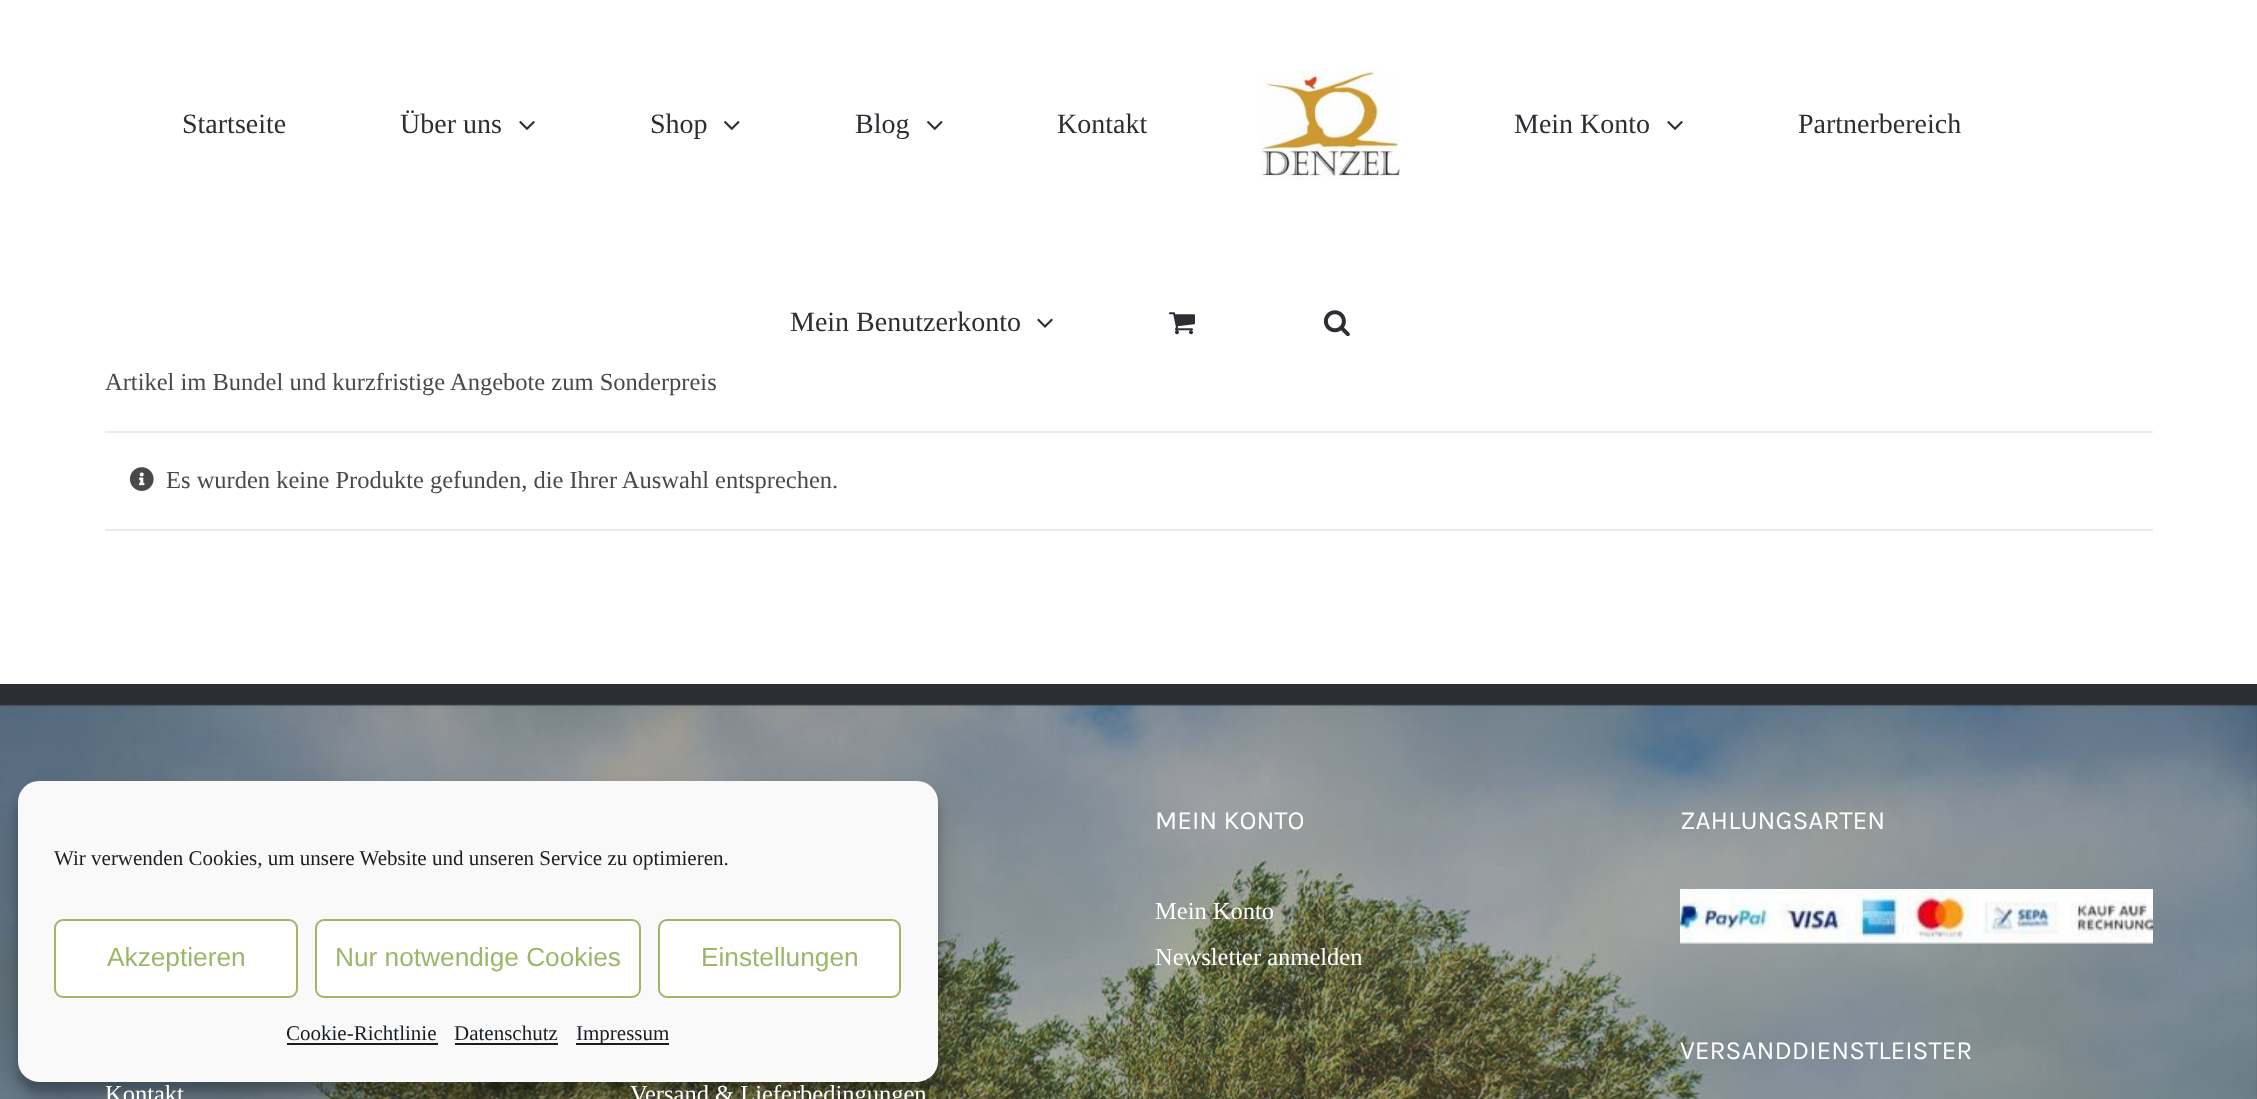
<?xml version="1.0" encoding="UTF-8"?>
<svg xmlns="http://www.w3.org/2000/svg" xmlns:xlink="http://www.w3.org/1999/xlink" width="2257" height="1099">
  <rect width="100%" height="100%" fill="#ffffff" />
  <image x="519" y="121" width="16" height="9" xlink:href="image1.png" />
  <image x="724" y="121" width="16" height="9" xlink:href="image2.png" />
  <image x="927" y="121" width="16" height="9" xlink:href="image2.png" />
  <image x="1260" y="68" width="140" height="112" xlink:href="image3.png" />
  <image x="1667" y="121" width="16" height="9" xlink:href="image1.png" />
  <image x="1037" y="318" width="16" height="10" xlink:href="image4.png" />
  <image x="1169" y="312" width="26" height="23" xlink:href="image5.png" />
  <image x="1323" y="310" width="27" height="26" xlink:href="image6.png" />
  <rect x="105" y="431" width="2048" height="2" fill="#eaeaea" />
  <rect x="105" y="529" width="2048" height="2" fill="#eaeaea" />
  <image x="129" y="467" width="25" height="24" xlink:href="image7.png" />
  <rect y="684" width="2257" height="415" fill="#2b2e32" />
  <image x="0" y="704" width="2257" height="395" xlink:href="image8.png" />
  <image x="1680" y="889" width="473" height="55" xlink:href="image9.png" />
  <rect x="18" y="791" width="920" height="301" rx="21" fill="#000000" fill-opacity="0.23" filter="blur(5px)" />
  <rect x="18" y="798" width="920" height="301" rx="21" fill="#000000" fill-opacity="0.19" filter="blur(17.5px)" />
  <rect x="19" y="782" width="918" height="299" rx="20" fill="#f9f9f9" stroke="#f9f9f9" stroke-width="2" />
  <rect x="55" y="920" width="242" height="77" rx="8" fill="#ffffff" stroke="#9db668" stroke-width="2" />
  <rect x="316" y="920" width="324" height="77" rx="8" fill="#ffffff" stroke="#9db668" stroke-width="2" />
  <rect x="659" y="920" width="241" height="77" rx="8" fill="#ffffff" stroke="#9db668" stroke-width="2" />
  <rect x="287" y="1043" width="151" height="2" fill="#191e23" />
  <rect x="455" y="1043" width="103" height="2" fill="#191e23" />
  <rect x="576" y="1043" width="93" height="2" fill="#191e23" />
  <text x="182" y="133" style="font-family: Liberation Serif; font-size: 28px; fill: #2b2e32">Startseite</text>
  <text x="400" y="133" style="font-family: Liberation Serif; font-size: 28px; fill: #2b2e32">Über uns</text>
  <text x="650" y="133" style="font-family: Liberation Serif; font-size: 28px; fill: #2b2e32">Shop</text>
  <text x="855" y="133" style="font-family: Liberation Serif; font-size: 28px; fill: #2b2e32">Blog</text>
  <text x="1057" y="133" style="font-family: Liberation Serif; font-size: 28px; fill: #2b2e32">Kontakt</text>
  <text x="1514" y="133" style="font-family: Liberation Serif; font-size: 28px; fill: #2b2e32">Mein Konto</text>
  <text x="1798" y="133" style="font-family: Liberation Serif; font-size: 28px; fill: #2b2e32">Partnerbereich</text>
  <text x="790" y="331" style="font-family: Liberation Serif; font-size: 28px; fill: #2b2e32">Mein Benutzerkonto</text>
  <text x="105" y="390" style="font-family: Liberation Serif; font-size: 24.5px; fill: #494949">Artikel im Bundel und kurzfristige Angebote zum Sonderpreis</text>
  <text x="166" y="488" style="font-family: Liberation Serif; font-size: 24.5px; fill: #494949">Es wurden keine Produkte gefunden, die Ihrer Auswahl entsprechen.</text>
  <text x="1155" y="829" style="font-family: Karla; font-size: 26.25px; fill: #ffffff">MEIN KONTO</text>
  <text x="1155" y="919" style="font-family: Liberation Serif; font-size: 24.5px; fill: #ffffff">Mein Konto</text>
  <text x="1155" y="965" style="font-family: Liberation Serif; font-size: 24.5px; fill: #ffffff">Newsletter anmelden</text>
  <text x="1680" y="829" style="font-family: Karla; font-size: 26.25px; fill: #ffffff">ZAHLUNGSARTEN</text>
  <text x="1680" y="1059" style="font-family: Karla; font-size: 26.25px; fill: #ffffff">VERSANDDIENSTLEISTER</text>
  <text x="105" y="1102" style="font-family: Liberation Serif; font-size: 24.5px; fill: #ffffff">Kontakt</text>
  <text x="630" y="1102" style="font-family: Liberation Serif; font-size: 24.5px; fill: #ffffff">Versand &amp; Lieferbedingungen</text>
  <text x="54" y="865" style="font-family: Liberation Serif; font-size: 21px; fill: #191e23">Wir verwenden Cookies, um unsere Website und unseren Service zu optimieren.</text>
  <text x="107" y="966" style="font-family: Liberation Sans; font-size: 26.25px; fill: #9db668">Akzeptieren</text>
  <text x="335" y="966" style="font-family: Liberation Sans; font-size: 26.25px; fill: #9db668">Nur notwendige Cookies</text>
  <text x="701" y="966" style="font-family: Liberation Sans; font-size: 26.25px; fill: #9db668">Einstellungen</text>
  <text x="286" y="1040" style="font-family: Liberation Serif; font-size: 21px; fill: #191e23">Cookie-Richtlinie</text>
  <text x="454" y="1040" style="font-family: Liberation Serif; font-size: 21px; fill: #191e23">Datenschutz</text>
  <text x="576" y="1040" style="font-family: Liberation Serif; font-size: 21px; fill: #191e23">Impressum</text>
</svg>
